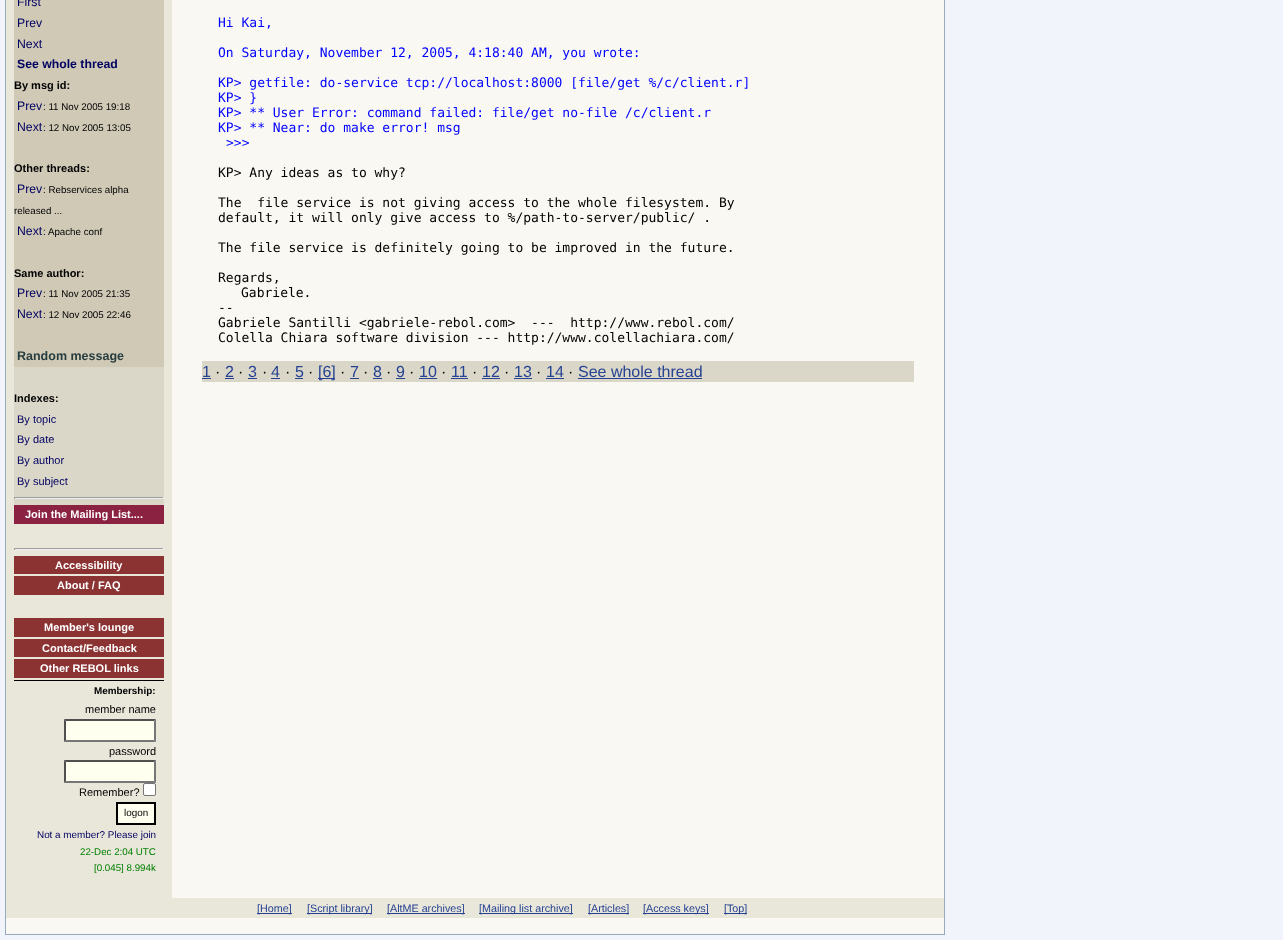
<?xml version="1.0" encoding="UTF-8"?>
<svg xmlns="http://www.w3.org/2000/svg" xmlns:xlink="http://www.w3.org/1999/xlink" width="1283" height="940">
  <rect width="100%" height="100%" fill="#f1f4fb" />
  <rect x="5.5" y="-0.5" width="939" height="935" fill="#f9f8f2" stroke="#99abbb" />
  <rect x="6" width="166" height="898" fill="#e9e6da" />
  <rect x="14" width="150" height="367" fill="#cfc9b6" />
  <rect x="14" y="367" width="150" height="138" fill="#dbd7c8" />
  <rect x="14" y="497" width="150" height="1" fill="#9f9f9f" />
  <rect x="163" y="497" width="1" height="2" fill="#eeeeee" />
  <rect x="14" y="498" width="150" height="1" fill="#eeeeee" />
  <rect x="14" y="497" width="1" height="2" fill="#9f9f9f" />
  <rect x="14" y="505" width="150" height="19" fill="#8b2242" />
  <rect x="14" y="680" width="150" height="1" fill="#000000" />
  <rect x="14" y="548" width="150" height="1" fill="#9f9f9f" />
  <rect x="163" y="548" width="1" height="2" fill="#eeeeee" />
  <rect x="14" y="549" width="150" height="1" fill="#eeeeee" />
  <rect x="14" y="548" width="1" height="2" fill="#9f9f9f" />
  <rect x="14" y="556" width="150" height="18" fill="#8b3232" />
  <rect x="14" y="576" width="150" height="19" fill="#8b3232" />
  <rect x="14" y="618" width="150" height="19" fill="#8b3232" />
  <rect x="14" y="639" width="150" height="18" fill="#8b3232" />
  <rect x="14" y="659" width="150" height="19" fill="#8b3232" />
  <rect x="64" y="719" width="92" height="23" fill="#fffff0" />
  <path d="M 64 719 h 92 l -2 2 h -88 z" fill="#4f4f4f" />
  <path d="M 156 719 v 23 l -2 -2 v -19 z" fill="#767676" />
  <path d="M 156 742 h -92 l 2 -2 h 88 z" fill="#767676" />
  <path d="M 64 742 v -23 l 2 2 v 19 z" fill="#4f4f4f" />
  <rect x="64" y="760" width="92" height="23" fill="#fffff0" />
  <path d="M 64 760 h 92 l -2 2 h -88 z" fill="#4f4f4f" />
  <path d="M 156 760 v 23 l -2 -2 v -19 z" fill="#767676" />
  <path d="M 156 783 h -92 l 2 -2 h 88 z" fill="#767676" />
  <path d="M 64 783 v -23 l 2 2 v 19 z" fill="#4f4f4f" />
  <rect x="143.5" y="783.5" width="12" height="12" rx="1.5" fill="#ffffff" stroke="#767676" />
  <rect x="117" y="803" width="38" height="21" fill="#fffff0" stroke="#000000" stroke-width="2" />
  <rect x="202" y="361" width="712" height="21" fill="#dbd7c8" />
  <rect x="202" y="378" width="9" height="1" fill="#254293" />
  <rect x="225" y="378" width="9" height="1" fill="#254293" />
  <rect x="248" y="378" width="9" height="1" fill="#254293" />
  <rect x="271" y="378" width="9" height="1" fill="#254293" />
  <rect x="295" y="378" width="8" height="1" fill="#254293" />
  <rect x="318" y="378" width="17" height="1" fill="#254293" />
  <rect x="350" y="378" width="9" height="1" fill="#254293" />
  <rect x="373" y="378" width="9" height="1" fill="#254293" />
  <rect x="396" y="378" width="9" height="1" fill="#254293" />
  <rect x="419" y="378" width="18" height="1" fill="#254293" />
  <rect x="451" y="378" width="17" height="1" fill="#254293" />
  <rect x="482" y="378" width="18" height="1" fill="#254293" />
  <rect x="514" y="378" width="18" height="1" fill="#254293" />
  <rect x="546" y="378" width="18" height="1" fill="#254293" />
  <rect x="578" y="378" width="124" height="1" fill="#254293" />
  <rect x="6" y="898" width="938" height="20" fill="#e9e6da" />
  <rect x="257" y="913" width="35" height="1" fill="#254293" />
  <rect x="307" y="913" width="65" height="1" fill="#254293" />
  <rect x="387" y="913" width="78" height="1" fill="#254293" />
  <rect x="479" y="913" width="94" height="1" fill="#254293" />
  <rect x="588" y="913" width="41" height="1" fill="#254293" />
  <rect x="643" y="913" width="66" height="1" fill="#254293" />
  <rect x="724" y="913" width="23" height="1" fill="#254293" />
  <text x="17" y="6" style="font-family: Liberation Sans; font-size: 12.25px; fill: #000060">First</text>
  <text x="17" y="27" style="font-family: Liberation Sans; font-size: 12.25px; fill: #000060">Prev</text>
  <text x="17" y="48" style="font-family: Liberation Sans; font-size: 12.25px; fill: #000060">Next</text>
  <text x="17" y="68" style="font-family: Liberation Sans; font-size: 12.25px; font-weight: bold; fill: #000060">See whole thread</text>
  <text x="14" y="89" style="font-family: Liberation Sans; font-size: 11px; font-weight: bold; fill: #000000">By msg id:</text>
  <text x="17" y="110" style="font-family: Liberation Sans; font-size: 12.25px; fill: #000060">Prev</text>
  <text x="43" y="110" style="font-family: Liberation Sans; font-size: 9.75px; fill: #000000">: 11 Nov 2005 19:18</text>
  <text x="17" y="131" style="font-family: Liberation Sans; font-size: 12.25px; fill: #000060">Next</text>
  <text x="43" y="131" style="font-family: Liberation Sans; font-size: 9.75px; fill: #000000">: 12 Nov 2005 13:05</text>
  <text x="14" y="172" style="font-family: Liberation Sans; font-size: 11px; font-weight: bold; fill: #000000">Other threads:</text>
  <text x="17" y="193" style="font-family: Liberation Sans; font-size: 12.25px; fill: #000060">Prev</text>
  <text x="43" y="193" style="font-family: Liberation Sans; font-size: 9.75px; fill: #000000">: Rebservices alpha</text>
  <text x="14" y="214" style="font-family: Liberation Sans; font-size: 9.75px; fill: #000000">released ...</text>
  <text x="17" y="235" style="font-family: Liberation Sans; font-size: 12.25px; fill: #000060">Next</text>
  <text x="43" y="235" style="font-family: Liberation Sans; font-size: 9.75px; fill: #000000">: Apache conf</text>
  <text x="14" y="277" style="font-family: Liberation Sans; font-size: 11px; font-weight: bold; fill: #000000">Same author:</text>
  <text x="17" y="297" style="font-family: Liberation Sans; font-size: 12.25px; fill: #000060">Prev</text>
  <text x="43" y="297" style="font-family: Liberation Sans; font-size: 9.75px; fill: #000000">: 11 Nov 2005 21:35</text>
  <text x="17" y="318" style="font-family: Liberation Sans; font-size: 12.25px; fill: #000060">Next</text>
  <text x="43" y="318" style="font-family: Liberation Sans; font-size: 9.75px; fill: #000000">: 12 Nov 2005 22:46</text>
  <text x="17" y="360" style="font-family: Liberation Sans; font-size: 12.5px; font-weight: bold; fill: #273c3e">Random message</text>
  <text x="14" y="402" style="font-family: Liberation Sans; font-size: 11px; font-weight: bold; fill: #000000">Indexes:</text>
  <text x="17" y="423" style="font-family: Liberation Sans; font-size: 11px; fill: #000060">By topic</text>
  <text x="17" y="443" style="font-family: Liberation Sans; font-size: 11px; fill: #000060">By date</text>
  <text x="17" y="464" style="font-family: Liberation Sans; font-size: 11px; fill: #000060">By author</text>
  <text x="17" y="485" style="font-family: Liberation Sans; font-size: 11px; fill: #000060">By subject</text>
  <text x="25" y="518" style="font-family: Liberation Sans; font-size: 11px; font-weight: bold; fill: #ffffff">Join the Mailing List....</text>
  <text x="55" y="569" style="font-family: Liberation Sans; font-size: 11px; font-weight: bold; fill: #ffffff">Accessibility</text>
  <text x="57" y="589" style="font-family: Liberation Sans; font-size: 11px; font-weight: bold; fill: #ffffff">About / FAQ</text>
  <text x="44" y="631" style="font-family: Liberation Sans; font-size: 11px; font-weight: bold; fill: #ffffff">Member's lounge</text>
  <text x="42" y="652" style="font-family: Liberation Sans; font-size: 11px; font-weight: bold; fill: #ffffff">Contact/Feedback</text>
  <text x="40" y="672" style="font-family: Liberation Sans; font-size: 11px; font-weight: bold; fill: #ffffff">Other REBOL links</text>
  <text x="94" y="694" style="font-family: Liberation Sans; font-size: 9.9px; font-weight: bold; fill: #000000">Membership:</text>
  <text x="85" y="713" style="font-family: Liberation Sans; font-size: 11px; fill: #000000">member name</text>
  <text x="109" y="755" style="font-family: Liberation Sans; font-size: 11px; fill: #000000">password</text>
  <text x="79" y="796" style="font-family: Liberation Sans; font-size: 11px; fill: #000000">Remember?</text>
  <text x="124" y="816" style="font-family: Liberation Sans; font-size: 9.9px; fill: #000000">logon</text>
  <text x="37" y="838" style="font-family: Liberation Sans; font-size: 9.9px; fill: #000060">Not a member? Please join</text>
  <text x="80" y="855" style="font-family: Liberation Sans; font-size: 9.75px; fill: #008000">22-Dec 2:04 UTC</text>
  <text x="94" y="871" style="font-family: Liberation Sans; font-size: 9.75px; fill: #008000">[0.045] 8.994k</text>
  <text x="218" y="27" style="font-family: DejaVu Sans Mono; font-size: 13px; fill: #0000ff">Hi Kai,</text>
  <text x="218" y="57" style="font-family: DejaVu Sans Mono; font-size: 13px; fill: #0000ff">On Saturday, November 12, 2005, 4:18:40 AM, you wrote:</text>
  <text x="218" y="87" style="font-family: DejaVu Sans Mono; font-size: 13px; fill: #0000ff">KP&gt; getfile: do-service tcp://localhost:8000 [file/get %/c/client.r]</text>
  <text x="218" y="102" style="font-family: DejaVu Sans Mono; font-size: 13px; fill: #0000ff">KP&gt; }</text>
  <text x="218" y="117" style="font-family: DejaVu Sans Mono; font-size: 13px; fill: #0000ff">KP&gt; ** User Error: command failed: file/get no-file /c/client.r</text>
  <text x="218" y="132" style="font-family: DejaVu Sans Mono; font-size: 13px; fill: #0000ff">KP&gt; ** Near: do make error! msg</text>
  <text x="226" y="147" style="font-family: DejaVu Sans Mono; font-size: 13px; fill: #0000ff">&gt;&gt;&gt;</text>
  <text x="218" y="177" style="font-family: DejaVu Sans Mono; font-size: 13px; fill: #000000">KP&gt; Any ideas as to why?</text>
  <text x="218" y="207" style="font-family: DejaVu Sans Mono; font-size: 13px; fill: #000000" xml:space="preserve">The  file service is not giving access to the whole filesystem. By</text>
  <text x="218" y="222" style="font-family: DejaVu Sans Mono; font-size: 13px; fill: #000000">default, it will only give access to %/path-to-server/public/ .</text>
  <text x="218" y="252" style="font-family: DejaVu Sans Mono; font-size: 13px; fill: #000000">The file service is definitely going to be improved in the future.</text>
  <text x="218" y="282" style="font-family: DejaVu Sans Mono; font-size: 13px; fill: #000000">Regards,</text>
  <text x="241" y="297" style="font-family: DejaVu Sans Mono; font-size: 13px; fill: #000000">Gabriele.</text>
  <text x="218" y="312" style="font-family: DejaVu Sans Mono; font-size: 13px; fill: #000000">--</text>
  <text x="218" y="327" style="font-family: DejaVu Sans Mono; font-size: 13px; fill: #000000" xml:space="preserve">Gabriele Santilli &lt;gabriele-rebol.com&gt;  ---  http://www.rebol.com/</text>
  <text x="218" y="342" style="font-family: DejaVu Sans Mono; font-size: 13px; fill: #000000">Colella Chiara software division --- http://www.colellachiara.com/</text>
  <text x="202" y="377" style="font-family: Liberation Sans; font-size: 16px; fill: #254293">1</text>
  <text x="215" y="377" style="font-family: Liberation Sans; font-size: 16px; fill: #000000">·</text>
  <text x="225" y="377" style="font-family: Liberation Sans; font-size: 16px; fill: #254293">2</text>
  <text x="238" y="377" style="font-family: Liberation Sans; font-size: 16px; fill: #000000">·</text>
  <text x="248" y="377" style="font-family: Liberation Sans; font-size: 16px; fill: #254293">3</text>
  <text x="262" y="377" style="font-family: Liberation Sans; font-size: 16px; fill: #000000">·</text>
  <text x="271" y="377" style="font-family: Liberation Sans; font-size: 16px; fill: #254293">4</text>
  <text x="285" y="377" style="font-family: Liberation Sans; font-size: 16px; fill: #000000">·</text>
  <text x="295" y="377" style="font-family: Liberation Sans; font-size: 16px; fill: #254293">5</text>
  <text x="308" y="377" style="font-family: Liberation Sans; font-size: 16px; fill: #000000">·</text>
  <text x="318" y="377" style="font-family: Liberation Sans; font-size: 16px; fill: #254293">[6]</text>
  <text x="340" y="377" style="font-family: Liberation Sans; font-size: 16px; fill: #000000">·</text>
  <text x="350" y="377" style="font-family: Liberation Sans; font-size: 16px; fill: #254293">7</text>
  <text x="363" y="377" style="font-family: Liberation Sans; font-size: 16px; fill: #000000">·</text>
  <text x="373" y="377" style="font-family: Liberation Sans; font-size: 16px; fill: #254293">8</text>
  <text x="386" y="377" style="font-family: Liberation Sans; font-size: 16px; fill: #000000">·</text>
  <text x="396" y="377" style="font-family: Liberation Sans; font-size: 16px; fill: #254293">9</text>
  <text x="409" y="377" style="font-family: Liberation Sans; font-size: 16px; fill: #000000">·</text>
  <text x="419" y="377" style="font-family: Liberation Sans; font-size: 16px; fill: #254293">10</text>
  <text x="441" y="377" style="font-family: Liberation Sans; font-size: 16px; fill: #000000">·</text>
  <text x="451" y="377" style="font-family: Liberation Sans; font-size: 16px; fill: #254293">11</text>
  <text x="472" y="377" style="font-family: Liberation Sans; font-size: 16px; fill: #000000">·</text>
  <text x="482" y="377" style="font-family: Liberation Sans; font-size: 16px; fill: #254293">12</text>
  <text x="504" y="377" style="font-family: Liberation Sans; font-size: 16px; fill: #000000">·</text>
  <text x="514" y="377" style="font-family: Liberation Sans; font-size: 16px; fill: #254293">13</text>
  <text x="536" y="377" style="font-family: Liberation Sans; font-size: 16px; fill: #000000">·</text>
  <text x="546" y="377" style="font-family: Liberation Sans; font-size: 16px; fill: #254293">14</text>
  <text x="568" y="377" style="font-family: Liberation Sans; font-size: 16px; fill: #000000">·</text>
  <text x="578" y="377" style="font-family: Liberation Sans; font-size: 16px; fill: #254293">See whole thread</text>
  <text x="257" y="912" style="font-family: Liberation Sans; font-size: 10.75px; fill: #254293">[Home]</text>
  <text x="307" y="912" style="font-family: Liberation Sans; font-size: 10.75px; fill: #254293">[Script library]</text>
  <text x="387" y="912" style="font-family: Liberation Sans; font-size: 10.75px; fill: #254293">[AltME archives]</text>
  <text x="479" y="912" style="font-family: Liberation Sans; font-size: 10.75px; fill: #254293">[Mailing list archive]</text>
  <text x="588" y="912" style="font-family: Liberation Sans; font-size: 10.75px; fill: #254293">[Articles]</text>
  <text x="643" y="912" style="font-family: Liberation Sans; font-size: 10.75px; fill: #254293">[Access keys]</text>
  <text x="724" y="912" style="font-family: Liberation Sans; font-size: 10.75px; fill: #254293">[Top]</text>
</svg>
